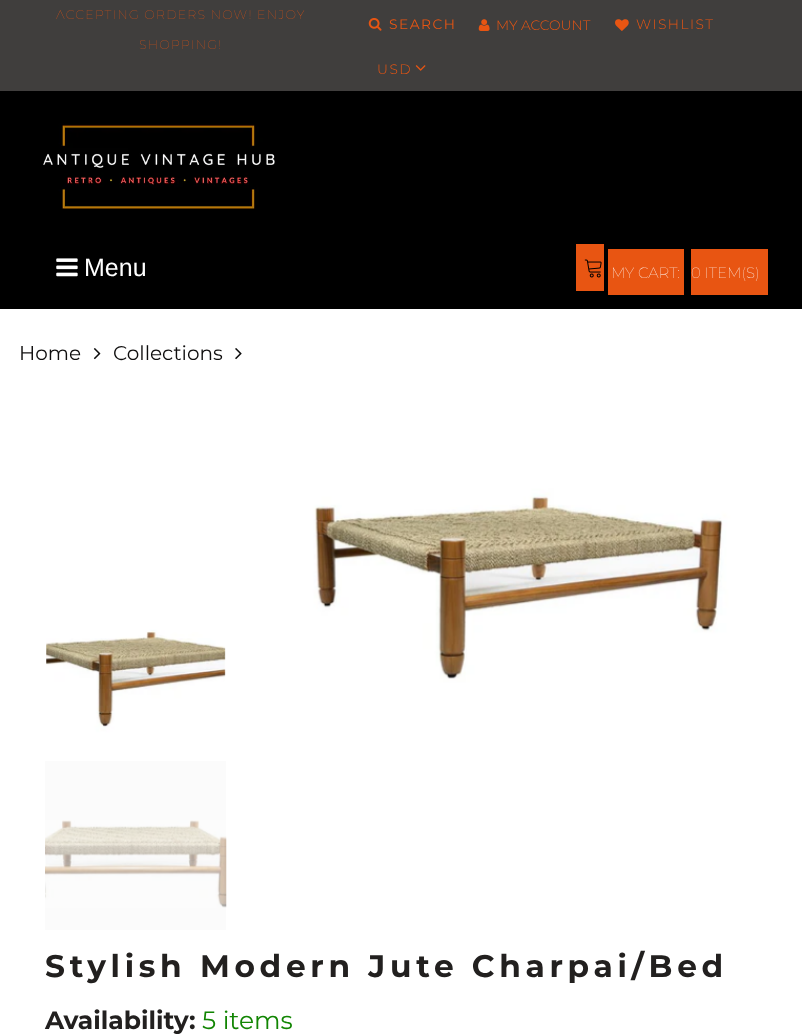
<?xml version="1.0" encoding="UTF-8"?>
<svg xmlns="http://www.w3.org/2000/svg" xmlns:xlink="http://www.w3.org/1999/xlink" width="802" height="1036">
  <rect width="100%" height="100%" fill="#ffffff" />
  <rect width="802" height="91" fill="#403e3d" />
  <image x="368" y="18" width="14" height="13" xlink:href="image1.png" />
  <image x="478" y="19" width="12" height="12" xlink:href="image2.png" />
  <image x="615" y="19" width="14" height="12" xlink:href="image3.png" />
  <image x="415" y="65" width="11" height="6" xlink:href="image4.png" />
  <rect y="91" width="802" height="218" fill="#000000" />
  <image x="43" y="123" width="232" height="86" xlink:href="image5.png" />
  <image x="56" y="258" width="22" height="19" xlink:href="image6.png" />
  <rect x="576" y="244" width="28" height="47" fill="#e85512" />
  <image x="584" y="259" width="18" height="19" xlink:href="image7.png" />
  <rect x="608" y="249" width="76" height="46" fill="#e85512" />
  <rect x="691" y="249" width="77" height="46" fill="#e85512" />
  <image x="93" y="348" width="8" height="12" xlink:href="image8.png" />
  <image x="235" y="348" width="7" height="12" xlink:href="image9.png" />
  <image x="46" y="580" width="180" height="168" xlink:href="image10.png" />
  <rect x="45" y="761" width="181" height="169" fill="#fbfbfb" />
  <image x="45" y="820" width="182" height="88" xlink:href="image11.png" />
  <image x="264" y="396" width="494" height="330" xlink:href="image12.png" />
  <text x="56" y="19" style="font-family: Montserrat; font-size: 12.5px; font-weight: 100; letter-spacing: 1.25px; fill: #e85512">ACCEPTING ORDERS NOW! ENJOY</text>
  <text x="139" y="49" style="font-family: Montserrat; font-size: 12.5px; font-weight: 100; letter-spacing: 1.25px; fill: #e85512">SHOPPING!</text>
  <text x="389" y="29" style="font-family: Montserrat; font-size: 13.75px; letter-spacing: 1.5px; fill: #e85512">SEARCH</text>
  <text x="496" y="30" style="font-family: Montserrat; font-size: 13.75px; font-weight: 300; fill: #e85512">MY ACCOUNT</text>
  <text x="636" y="29" style="font-family: Montserrat; font-size: 13.75px; font-weight: 300; letter-spacing: 1.5px; fill: #e85512">WISHLIST</text>
  <text x="377" y="74" style="font-family: Montserrat; font-size: 13.75px; font-weight: 300; letter-spacing: 1.5px; fill: #e85512">USD</text>
  <text x="84" y="276" style="font-family: Liberation Sans; font-size: 25px; fill: #ffffff">Menu</text>
  <text x="611" y="278" style="font-family: Montserrat; font-size: 15px; font-weight: 100; fill: #ffffff">MY CART:</text>
  <text x="691" y="278" style="font-family: Montserrat; font-size: 15px; font-weight: 100; fill: #ffffff">0 ITEM(S)</text>
  <text x="19" y="360" style="font-family: Montserrat; font-size: 20px; fill: #0f0e0e">Home</text>
  <text x="113" y="360" style="font-family: Montserrat; font-size: 20px; fill: #0f0e0e">Collections</text>
  <text x="45" y="977" style="font-family: Montserrat; font-size: 31.25px; font-weight: bold; letter-spacing: 4.7px; fill: #22201f">Stylish Modern Jute Charpai/Bed</text>
  <text x="45" y="1029" style="font-family: Montserrat; font-size: 25px; font-weight: bold; fill: #22201f">Availability:</text>
  <text x="202" y="1029" style="font-family: Montserrat; font-size: 25px; fill: #118502">5 items</text>
</svg>
